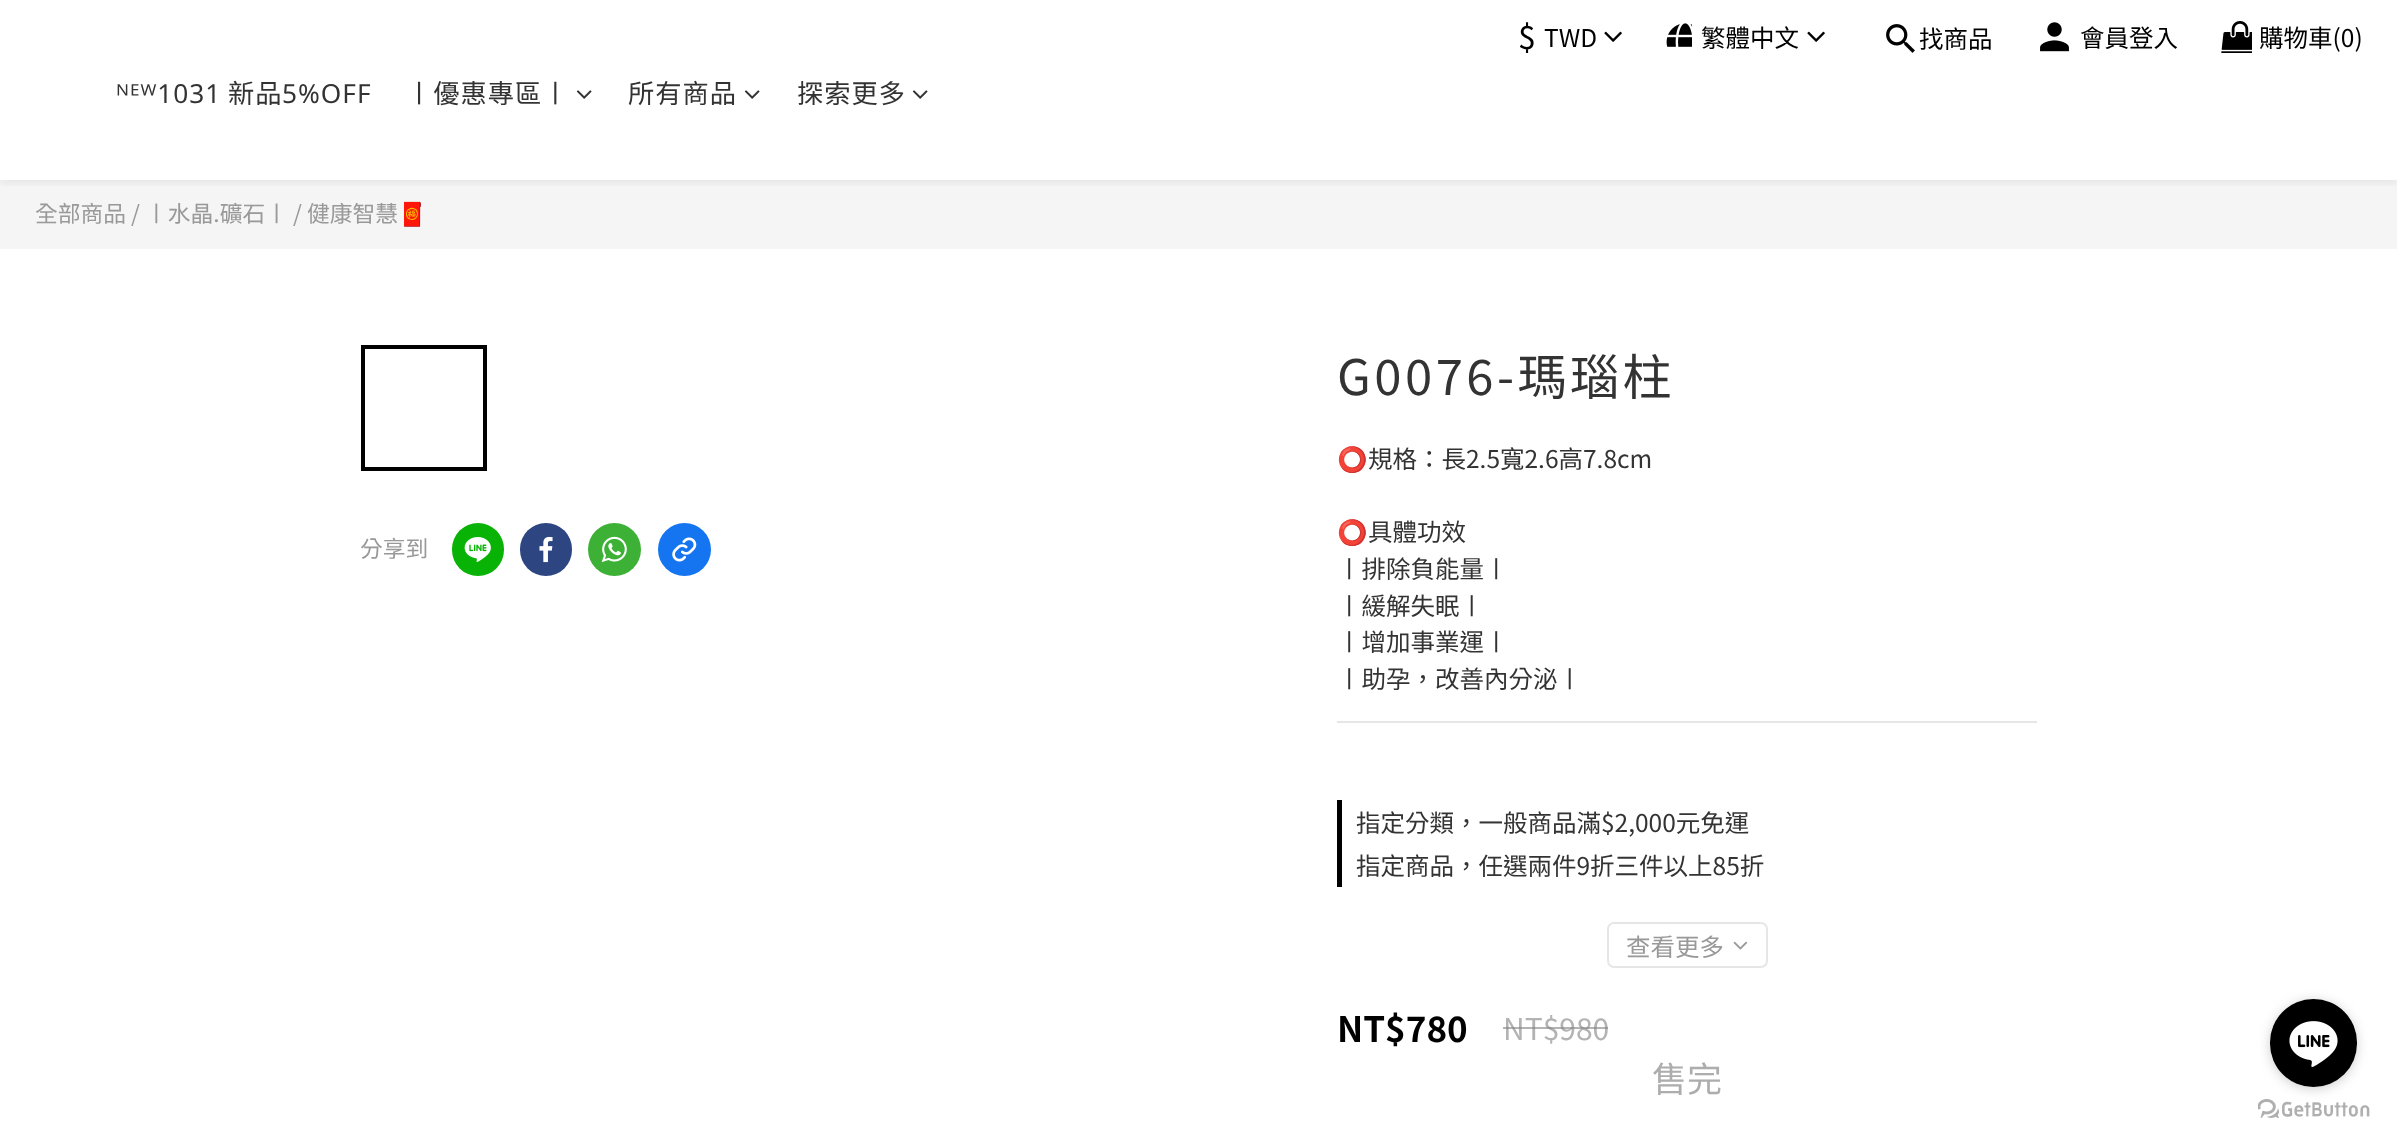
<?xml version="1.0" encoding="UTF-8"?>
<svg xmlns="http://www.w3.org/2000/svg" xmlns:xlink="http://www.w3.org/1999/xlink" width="2397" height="1143">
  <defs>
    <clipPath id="clip1"><rect x="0" y="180" width="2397" height="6" /></clipPath>
  </defs>
  <rect width="100%" height="100%" fill="#ffffff" />
  <rect y="180" width="2397" height="69" fill="#f5f5f5" />
  <g clip-path="url(#clip1)">
    <rect y="4" width="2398" height="180" fill="#000000" fill-opacity="0.06" filter="blur(5px)" />
  </g>
  <image x="1604" y="31" width="18" height="11" xlink:href="image1.png" />
  <image x="1666" y="23" width="26" height="24" xlink:href="image2.png" />
  <image x="1807" y="31" width="18" height="11" xlink:href="image3.png" />
  <image x="1886" y="24" width="29" height="29" xlink:href="image4.png" />
  <image x="2040" y="22" width="29" height="30" xlink:href="image5.png" />
  <image x="2221" y="21" width="31" height="32" xlink:href="image6.png" />
  <image x="576" y="90" width="16" height="9" xlink:href="image7.png" />
  <image x="744" y="90" width="16" height="9" xlink:href="image7.png" />
  <image x="912" y="90" width="16" height="9" xlink:href="image7.png" />
  <rect x="363" y="347" width="122" height="122" fill="none" stroke="#000000" stroke-width="4" />
  <rect x="452" y="523" width="52" height="53" rx="26" fill="#09b305" />
  <image x="464" y="537" width="27" height="25" xlink:href="image8.png" />
  <rect x="520" y="523" width="52" height="53" rx="26" fill="#2d4682" />
  <image x="539" y="536" width="14" height="27" xlink:href="image9.png" />
  <circle cx="614.5" cy="549.5" r="26.5" fill="#3cb136" />
  <image x="601" y="536" width="26" height="27" xlink:href="image10.png" />
  <circle cx="684.5" cy="549.5" r="26.5" fill="#1575f0" />
  <image x="672" y="537" width="25" height="25" xlink:href="image11.png" />
  <rect x="1337" y="721" width="700" height="2" fill="#e6e6e6" />
  <rect x="1337" y="800" width="5" height="87" fill="#000000" />
  <rect x="1608" y="923" width="159" height="44" rx="6" fill="none" stroke="#e6e6e6" stroke-width="2" />
  <image x="1733" y="941" width="15" height="9" xlink:href="image12.png" />
  <image x="2258" y="1099" width="112" height="19" xlink:href="image14.png" />
  <rect x="2270" y="1001" width="87" height="88" rx="43.5" fill="#888888" fill-opacity="0.4" filter="blur(6px)" />
  <rect x="2270" y="999" width="87" height="88" rx="43.5" fill="#000000" />
  <image x="2289" y="1021" width="49" height="46" xlink:href="image13.png" />
  <text x="1518" y="49" style="font-family: Noto Sans TC; font-size: 32px; letter-spacing: 2px; fill: #000000">$</text>
  <text x="1544" y="47" style="font-family: Noto Sans TC; font-size: 24.5px; fill: #000000">TWD</text>
  <text x="1701" y="47" style="font-family: Noto Sans TC; font-size: 24.5px; fill: #000000">繁體中文</text>
  <text x="1919" y="48" style="font-family: Noto Sans TC; font-size: 24.5px; fill: #000000">找商品</text>
  <text x="2080" y="47" style="font-family: Noto Sans TC; font-size: 24.5px; fill: #000000">會員登入</text>
  <text x="2259" y="47" style="font-family: Noto Sans TC; font-size: 24.5px; fill: #000000">購物車(0)</text>
  <text x="116" y="103" style="font-family: Noto Sans; font-size: 26.25px; letter-spacing: 1px; fill: #333333">ᴺᴱᵂ1031</text>
  <text x="228" y="103" style="font-family: Noto Sans TC; font-size: 26.25px; letter-spacing: 1px; fill: #333333">新品</text>
  <text x="282" y="103" style="font-family: Noto Sans; font-size: 26.25px; letter-spacing: 1px; fill: #333333">5%OFF</text>
  <text x="406" y="103" style="font-family: Noto Sans TC; font-size: 26.25px; letter-spacing: 1px; fill: #333333">〡優惠專區〡</text>
  <text x="628" y="103" style="font-family: Noto Sans TC; font-size: 26.25px; letter-spacing: 1px; fill: #333333">所有商品</text>
  <text x="797" y="103" style="font-family: Noto Sans TC; font-size: 26.25px; letter-spacing: 1px; fill: #333333">探索更多</text>
  <text x="35" y="222" style="font-family: Noto Sans TC; font-size: 22.75px; fill: #999999">全部商品 / 〡水晶.礦石〡 / 健康智慧</text>
  <text x="398" y="222" style="font-family: Noto Color Emoji; font-size: 22.75px; fill: #999999">🧧</text>
  <text x="360" y="557" style="font-family: Noto Sans TC; font-size: 22.75px; fill: #999999">分享到</text>
  <text x="1337" y="395" style="font-family: Noto Sans TC; font-size: 49px; letter-spacing: 3.5px; fill: #333333">G0076-瑪瑙柱</text>
  <text x="1337" y="468" style="font-family: 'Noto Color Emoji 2'; font-size: 24.5px; fill: #333333">⭕</text>
  <text x="1368" y="468" style="font-family: Noto Sans TC; font-size: 24.5px; fill: #333333">規格：長2.5寬2.6高7.8cm</text>
  <text x="1337" y="541" style="font-family: 'Noto Color Emoji 2'; font-size: 24.5px; fill: #333333">⭕</text>
  <text x="1368" y="541" style="font-family: Noto Sans TC; font-size: 24.5px; fill: #333333">具體功效</text>
  <text x="1337" y="578" style="font-family: Noto Sans TC; font-size: 24.5px; fill: #333333">〡排除負能量〡</text>
  <text x="1337" y="615" style="font-family: Noto Sans TC; font-size: 24.5px; fill: #333333">〡緩解失眠〡</text>
  <text x="1337" y="651" style="font-family: Noto Sans TC; font-size: 24.5px; fill: #333333">〡增加事業運〡</text>
  <text x="1337" y="688" style="font-family: Noto Sans TC; font-size: 24.5px; fill: #333333">〡助孕，改善內分泌〡</text>
  <text x="1356" y="832" style="font-family: Noto Sans TC; font-size: 24.5px; fill: #333333">指定分類，一般商品滿$2,000元免運</text>
  <text x="1356" y="875" style="font-family: Noto Sans TC; font-size: 24.5px; fill: #333333">指定商品，任選兩件9折三件以上85折</text>
  <text x="1626" y="956" style="font-family: Noto Sans TC; font-size: 24.5px; fill: #999999">查看更多</text>
  <text x="1337" y="1042" style="font-family: Noto Sans TC; font-size: 35px; font-weight: bold; fill: #000000">NT$780</text>
  <text x="1503" y="1040" style="font-family: Noto Sans TC; font-size: 30px; fill: #b3b3b3">NT$980</text>
  <rect x="1503" y="1027" width="105" height="2" fill="#808080" fill-opacity="0.6" />
  <text x="1652" y="1092" style="font-family: Noto Sans TC; font-size: 35px; fill: #adadad">售完</text>
</svg>
